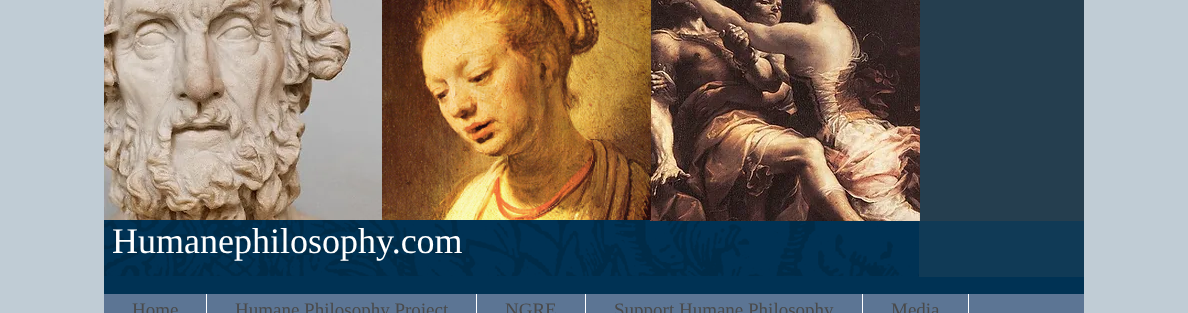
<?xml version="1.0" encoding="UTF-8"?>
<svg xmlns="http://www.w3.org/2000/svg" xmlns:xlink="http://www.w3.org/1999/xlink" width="1188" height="313">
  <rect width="100%" height="100%" fill="#c0ccd5" />
  <image x="104" y="0" width="278" height="220" xlink:href="image1.png" />
  <image x="104" y="220" width="815" height="56" xlink:href="image4.png" />
  <image x="650" y="0" width="270" height="221" xlink:href="image3.png" />
  <image x="382" y="0" width="269" height="220" xlink:href="image2.png" />
  <rect x="920" width="164" height="221" fill="#253e4f" />
  <rect x="104" y="276" width="980" height="18" fill="#003254" />
  <rect x="919" y="221" width="165" height="56" fill="#103a56" />
  <rect x="104" y="294" width="980" height="19" fill="#5c7594" />
  <rect x="206" y="294" width="1" height="19" fill="#ffffff" />
  <rect x="476" y="294" width="1" height="19" fill="#ffffff" />
  <rect x="585" y="294" width="1" height="19" fill="#ffffff" />
  <rect x="862" y="294" width="1" height="19" fill="#ffffff" />
  <rect x="968" y="294" width="1" height="19" fill="#ffffff" />
  <text x="112" y="253" style="font-family: Liberation Serif; font-size: 36px; fill: #ffffff">Humanephilosophy.com</text>
  <text x="132" y="316" style="font-family: Liberation Serif; font-size: 19px; fill: #4a4a4a">Home</text>
  <text x="235" y="316" style="font-family: Liberation Serif; font-size: 19px; fill: #4a4a4a">Humane Philosophy Project</text>
  <text x="505" y="316" style="font-family: Liberation Serif; font-size: 19px; fill: #4a4a4a">NGRE</text>
  <text x="614" y="316" style="font-family: Liberation Serif; font-size: 19px; fill: #4a4a4a">Support Humane Philosophy</text>
  <text x="891" y="316" style="font-family: Liberation Serif; font-size: 19px; fill: #4a4a4a">Media</text>
</svg>
